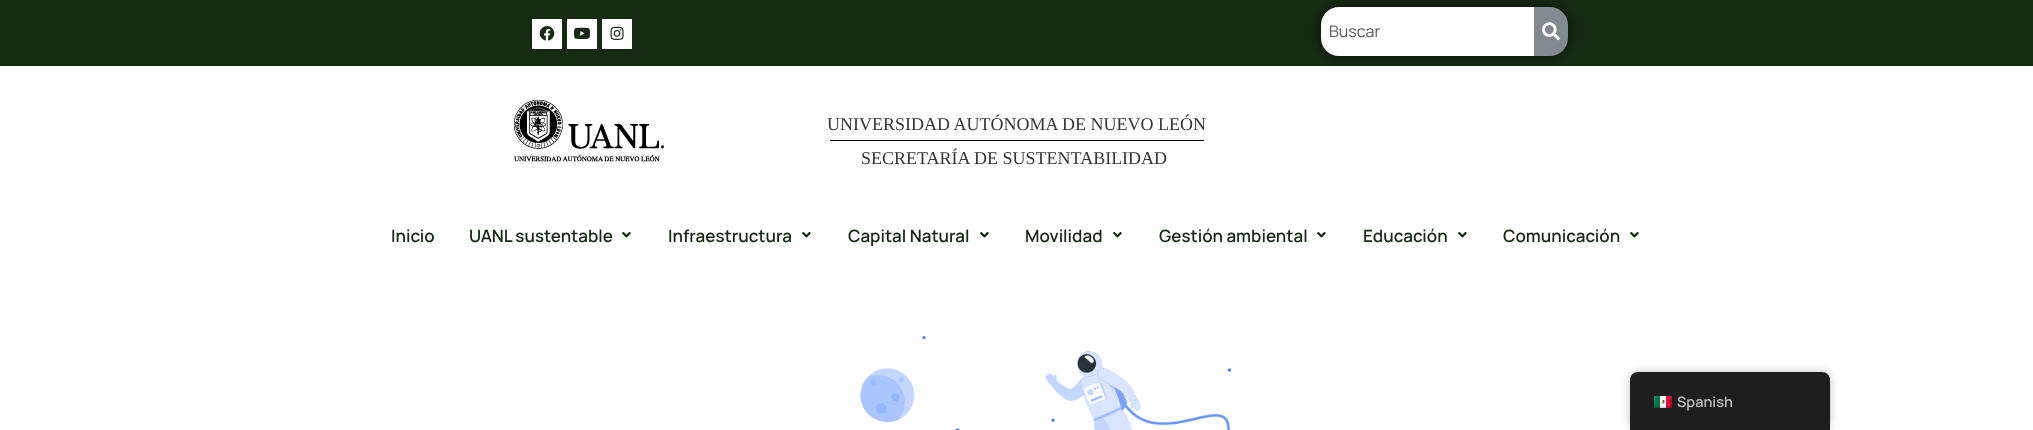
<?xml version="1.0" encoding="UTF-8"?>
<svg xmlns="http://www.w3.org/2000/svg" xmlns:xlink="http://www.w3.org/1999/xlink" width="2033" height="430">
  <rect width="100%" height="100%" fill="#ffffff" />
  <rect width="2033" height="66" fill="#152913" />
  <rect x="532" y="19" width="30" height="30" fill="#ffffff" />
  <image x="539" y="26" width="16" height="15" xlink:href="image1.png" />
  <rect x="567" y="19" width="30" height="30" fill="#ffffff" />
  <image x="574" y="27" width="16" height="12" xlink:href="image2.png" />
  <rect x="602" y="19" width="30" height="30" fill="#ffffff" />
  <image x="610" y="26" width="14" height="14" xlink:href="image3.png" />
  <rect x="1321" y="7" width="247" height="49" rx="18" fill="#000000" fill-opacity="0.5" filter="blur(5px)" />
  <path d="M 1339 7 h 195 v 49 h -195 c -10 0 -18 -8 -18 -18 v -13 c 0 -10 8 -18 18 -18 z" fill="#ffffff" />
  <path d="M 1534 7 h 16 c 10 0 18 8 18 18 v 13 c 0 10 -8 18 -18 18 h -16 z" fill="#818a91" />
  <image x="1542" y="22" width="18" height="19" xlink:href="image4.png" />
  <image x="514" y="100" width="150" height="62" xlink:href="image5.png" />
  <rect x="830" y="140" width="374" height="1" fill="#000000" />
  <image x="622" y="232" width="9" height="6" xlink:href="image6.png" />
  <image x="802" y="232" width="9" height="6" xlink:href="image6.png" />
  <image x="980" y="232" width="9" height="6" xlink:href="image6.png" />
  <image x="1113" y="232" width="9" height="6" xlink:href="image6.png" />
  <image x="1317" y="232" width="9" height="6" xlink:href="image6.png" />
  <image x="1458" y="232" width="9" height="6" xlink:href="image6.png" />
  <image x="1630" y="232" width="9" height="6" xlink:href="image6.png" />
  <image x="860" y="336" width="371" height="94" xlink:href="image7.png" />
  <rect x="1630" y="372" width="200" height="58" rx="8" fill="#000000" fill-opacity="0.25" filter="blur(4px)" />
  <path d="M 1638 372 h 184 c 4.5 0 8 3.5 8 8 v 50 h -200 v -50 c 0 -4.5 3.5 -8 8 -8 z" fill="#1e1e1e" />
  <image x="1654" y="396" width="18" height="12" xlink:href="image8.png" />
  <text x="1329" y="37" style="font-family: Manrope; font-size: 16px; fill: #585858">Buscar</text>
  <text x="827" y="130" style="font-family: Liberation Serif; font-size: 18px; fill: #363636">UNIVERSIDAD AUTÓNOMA DE NUEVO LEÓN</text>
  <text x="861" y="164" style="font-family: Liberation Serif; font-size: 18px; fill: #363636">SECRETARÍA DE SUSTENTABILIDAD</text>
  <text x="391" y="242" style="font-family: Manrope; font-size: 17px; font-weight: 600; fill: #132a13">Inicio</text>
  <text x="469" y="242" style="font-family: Manrope; font-size: 17px; font-weight: 600; fill: #132a13">UANL sustentable</text>
  <text x="668" y="242" style="font-family: Manrope; font-size: 17px; font-weight: 600; fill: #132a13">Infraestructura</text>
  <text x="848" y="242" style="font-family: Manrope; font-size: 17px; font-weight: 600; fill: #132a13">Capital Natural</text>
  <text x="1025" y="242" style="font-family: Manrope; font-size: 17px; font-weight: 600; fill: #132a13">Movilidad</text>
  <text x="1159" y="242" style="font-family: Manrope; font-size: 17px; font-weight: 600; fill: #132a13">Gestión ambiental</text>
  <text x="1363" y="242" style="font-family: Manrope; font-size: 17px; font-weight: 600; fill: #132a13">Educación</text>
  <text x="1503" y="242" style="font-family: Manrope; font-size: 17px; font-weight: 600; fill: #132a13">Comunicación</text>
  <text x="1677" y="407" style="font-family: Manrope; font-size: 14.5px; font-weight: 600; fill: #bdbdbd">Spanish</text>
</svg>
